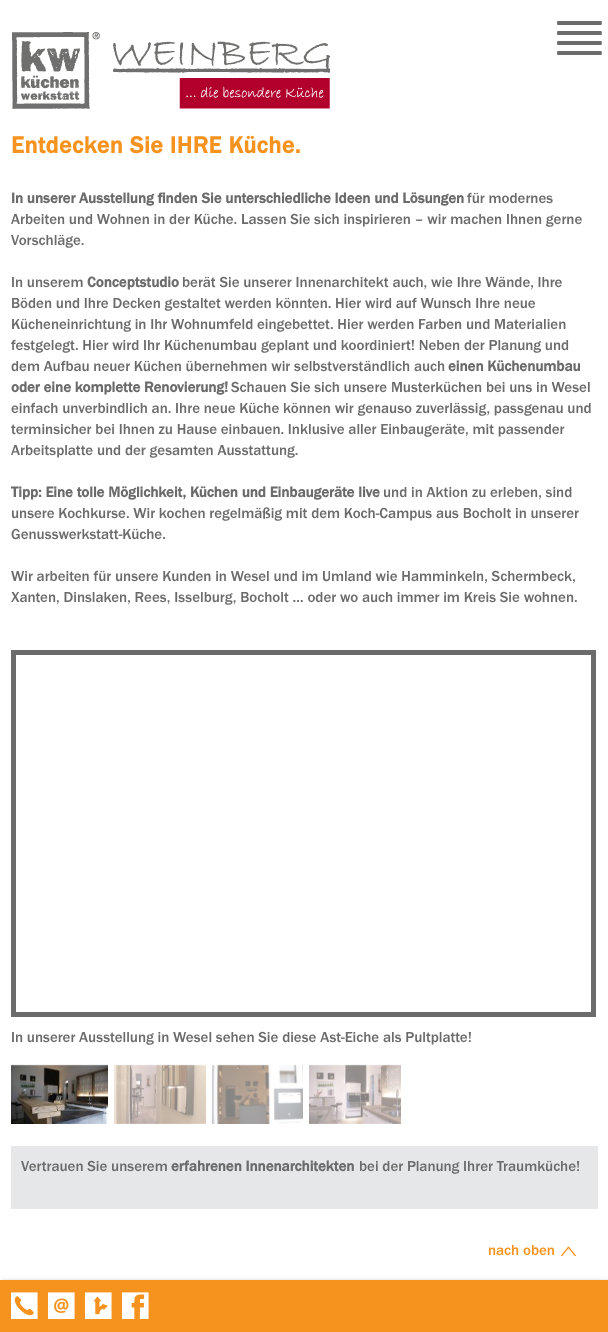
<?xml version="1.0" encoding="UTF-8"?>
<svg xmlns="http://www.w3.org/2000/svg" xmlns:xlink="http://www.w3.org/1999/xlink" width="608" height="1332">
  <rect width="100%" height="100%" fill="#ffffff" />
  <image x="557" y="21" width="45" height="34" xlink:href="image1.png" />
  <image x="12" y="32" width="319" height="77" xlink:href="image2.png" />
  <rect x="2" y="1282" width="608" height="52" fill="#323232" fill-opacity="0.5" filter="blur(2.5px)" />
  <rect y="1280" width="608" height="52" fill="#f6931e" />
  <image x="11" y="1292" width="27" height="27" xlink:href="image3.png" />
  <image x="48" y="1292" width="27" height="27" xlink:href="image4.png" />
  <image x="85" y="1292" width="27" height="27" xlink:href="image5.png" />
  <image x="122" y="1292" width="27" height="27" xlink:href="image6.png" />
  <rect x="13.5" y="652.5" width="580" height="362" fill="none" stroke="#6b6b6b" stroke-width="5" />
  <image x="11" y="1064" width="97" height="60" xlink:href="image7.png" />
  <image x="114" y="1064" width="92" height="60" xlink:href="image8.png" />
  <image x="211" y="1064" width="92" height="60" xlink:href="image9.png" />
  <image x="309" y="1064" width="92" height="60" xlink:href="image10.png" />
  <rect x="11" y="1146" width="587" height="63" fill="#e6e7e9" />
  <image x="561" y="1246" width="15" height="10" xlink:href="image11.png" />
  <text x="11" y="153" style="font-family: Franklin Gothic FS; font-size: 24px; font-weight: bold; letter-spacing: 0.5px; fill: #f6931e">Entdecken Sie IHRE Küche.</text>
  <text x="11" y="203" style="font-family: Franklin Gothic FS; font-size: 15px; font-weight: bold; fill: #6b6b6b">In unserer Ausstellung finden Sie unterschiedliche Ideen und Lösungen</text>
  <text x="467" y="203" style="font-family: Franklin Gothic FS; font-size: 15px; font-weight: 500; fill: #6b6b6b">für modernes</text>
  <text x="11" y="224" style="font-family: Franklin Gothic FS; font-size: 15px; font-weight: 500; fill: #6b6b6b">Arbeiten und Wohnen in der Küche. Lassen Sie sich inspirieren – wir machen Ihnen gerne</text>
  <text x="11" y="245" style="font-family: Franklin Gothic FS; font-size: 15px; font-weight: 500; fill: #6b6b6b">Vorschläge.</text>
  <text x="11" y="287" style="font-family: Franklin Gothic FS; font-size: 15px; font-weight: 500; fill: #6b6b6b">In unserem</text>
  <text x="87" y="287" style="font-family: Franklin Gothic FS; font-size: 15px; font-weight: bold; fill: #6b6b6b">Conceptstudio</text>
  <text x="182" y="287" style="font-family: Franklin Gothic FS; font-size: 15px; font-weight: 500; fill: #6b6b6b">berät Sie unserer Innenarchitekt auch, wie Ihre Wände, Ihre</text>
  <text x="11" y="308" style="font-family: Franklin Gothic FS; font-size: 15px; font-weight: 500; fill: #6b6b6b">Böden und Ihre Decken gestaltet werden könnten. Hier wird auf Wunsch Ihre neue</text>
  <text x="11" y="329" style="font-family: Franklin Gothic FS; font-size: 15px; font-weight: 500; fill: #6b6b6b">Kücheneinrichtung in Ihr Wohnumfeld eingebettet. Hier werden Farben und Materialien</text>
  <text x="11" y="350" style="font-family: Franklin Gothic FS; font-size: 15px; font-weight: 500; fill: #6b6b6b">festgelegt. Hier wird Ihr Küchenumbau geplant und koordiniert! Neben der Planung und</text>
  <text x="11" y="371" style="font-family: Franklin Gothic FS; font-size: 15px; font-weight: 500; fill: #6b6b6b">dem Aufbau neuer Küchen übernehmen wir selbstverständlich auch</text>
  <text x="448" y="371" style="font-family: Franklin Gothic FS; font-size: 15px; font-weight: bold; fill: #6b6b6b">einen Küchenumbau</text>
  <text x="11" y="392" style="font-family: Franklin Gothic FS; font-size: 15px; font-weight: bold; fill: #6b6b6b">oder eine komplette Renovierung!</text>
  <text x="231" y="392" style="font-family: Franklin Gothic FS; font-size: 15px; font-weight: 500; fill: #6b6b6b">Schauen Sie sich unsere Musterküchen bei uns in Wesel</text>
  <text x="11" y="413" style="font-family: Franklin Gothic FS; font-size: 15px; font-weight: 500; fill: #6b6b6b">einfach unverbindlich an. Ihre neue Küche können wir genauso zuverlässig, passgenau und</text>
  <text x="11" y="434" style="font-family: Franklin Gothic FS; font-size: 15px; font-weight: 500; fill: #6b6b6b">terminsicher bei Ihnen zu Hause einbauen. Inklusive aller Einbaugeräte, mit passender</text>
  <text x="11" y="455" style="font-family: Franklin Gothic FS; font-size: 15px; font-weight: 500; fill: #6b6b6b">Arbeitsplatte und der gesamten Ausstattung.</text>
  <text x="11" y="497" style="font-family: Franklin Gothic FS; font-size: 15px; font-weight: bold; fill: #6b6b6b">Tipp: Eine tolle Möglichkeit, Küchen und Einbaugeräte live</text>
  <text x="383" y="497" style="font-family: Franklin Gothic FS; font-size: 15px; font-weight: 500; fill: #6b6b6b">und in Aktion zu erleben, sind</text>
  <text x="11" y="518" style="font-family: Franklin Gothic FS; font-size: 15px; font-weight: 500; fill: #6b6b6b">unsere Kochkurse. Wir kochen regelmäßig mit dem Koch-Campus aus Bocholt in unserer</text>
  <text x="11" y="539" style="font-family: Franklin Gothic FS; font-size: 15px; font-weight: 500; fill: #6b6b6b">Genusswerkstatt-Küche.</text>
  <text x="11" y="581" style="font-family: Franklin Gothic FS; font-size: 15px; font-weight: 500; fill: #6b6b6b">Wir arbeiten für unsere Kunden in Wesel und im Umland wie Hamminkeln, Schermbeck,</text>
  <text x="11" y="602" style="font-family: Franklin Gothic FS; font-size: 15px; font-weight: 500; fill: #6b6b6b">Xanten, Dinslaken, Rees, Isselburg, Bocholt … oder wo auch immer im Kreis Sie wohnen.</text>
  <text x="11" y="1042" style="font-family: Franklin Gothic FS; font-size: 15px; font-weight: 500; fill: #6b6b6b">In unserer Ausstellung in Wesel sehen Sie diese Ast-Eiche als Pultplatte!</text>
  <text x="21" y="1171" style="font-family: Franklin Gothic FS; font-size: 15px; font-weight: 500; fill: #6b6b6b">Vertrauen Sie unserem</text>
  <text x="171" y="1171" style="font-family: Franklin Gothic FS; font-size: 15px; font-weight: bold; fill: #6b6b6b">erfahrenen Innenarchitekten</text>
  <text x="359" y="1171" style="font-family: Franklin Gothic FS; font-size: 15px; font-weight: 500; fill: #6b6b6b">bei der Planung Ihrer Traumküche!</text>
  <text x="488" y="1255" style="font-family: Franklin Gothic FS; font-size: 15px; font-weight: 500; fill: #f6931e">nach oben</text>
</svg>
